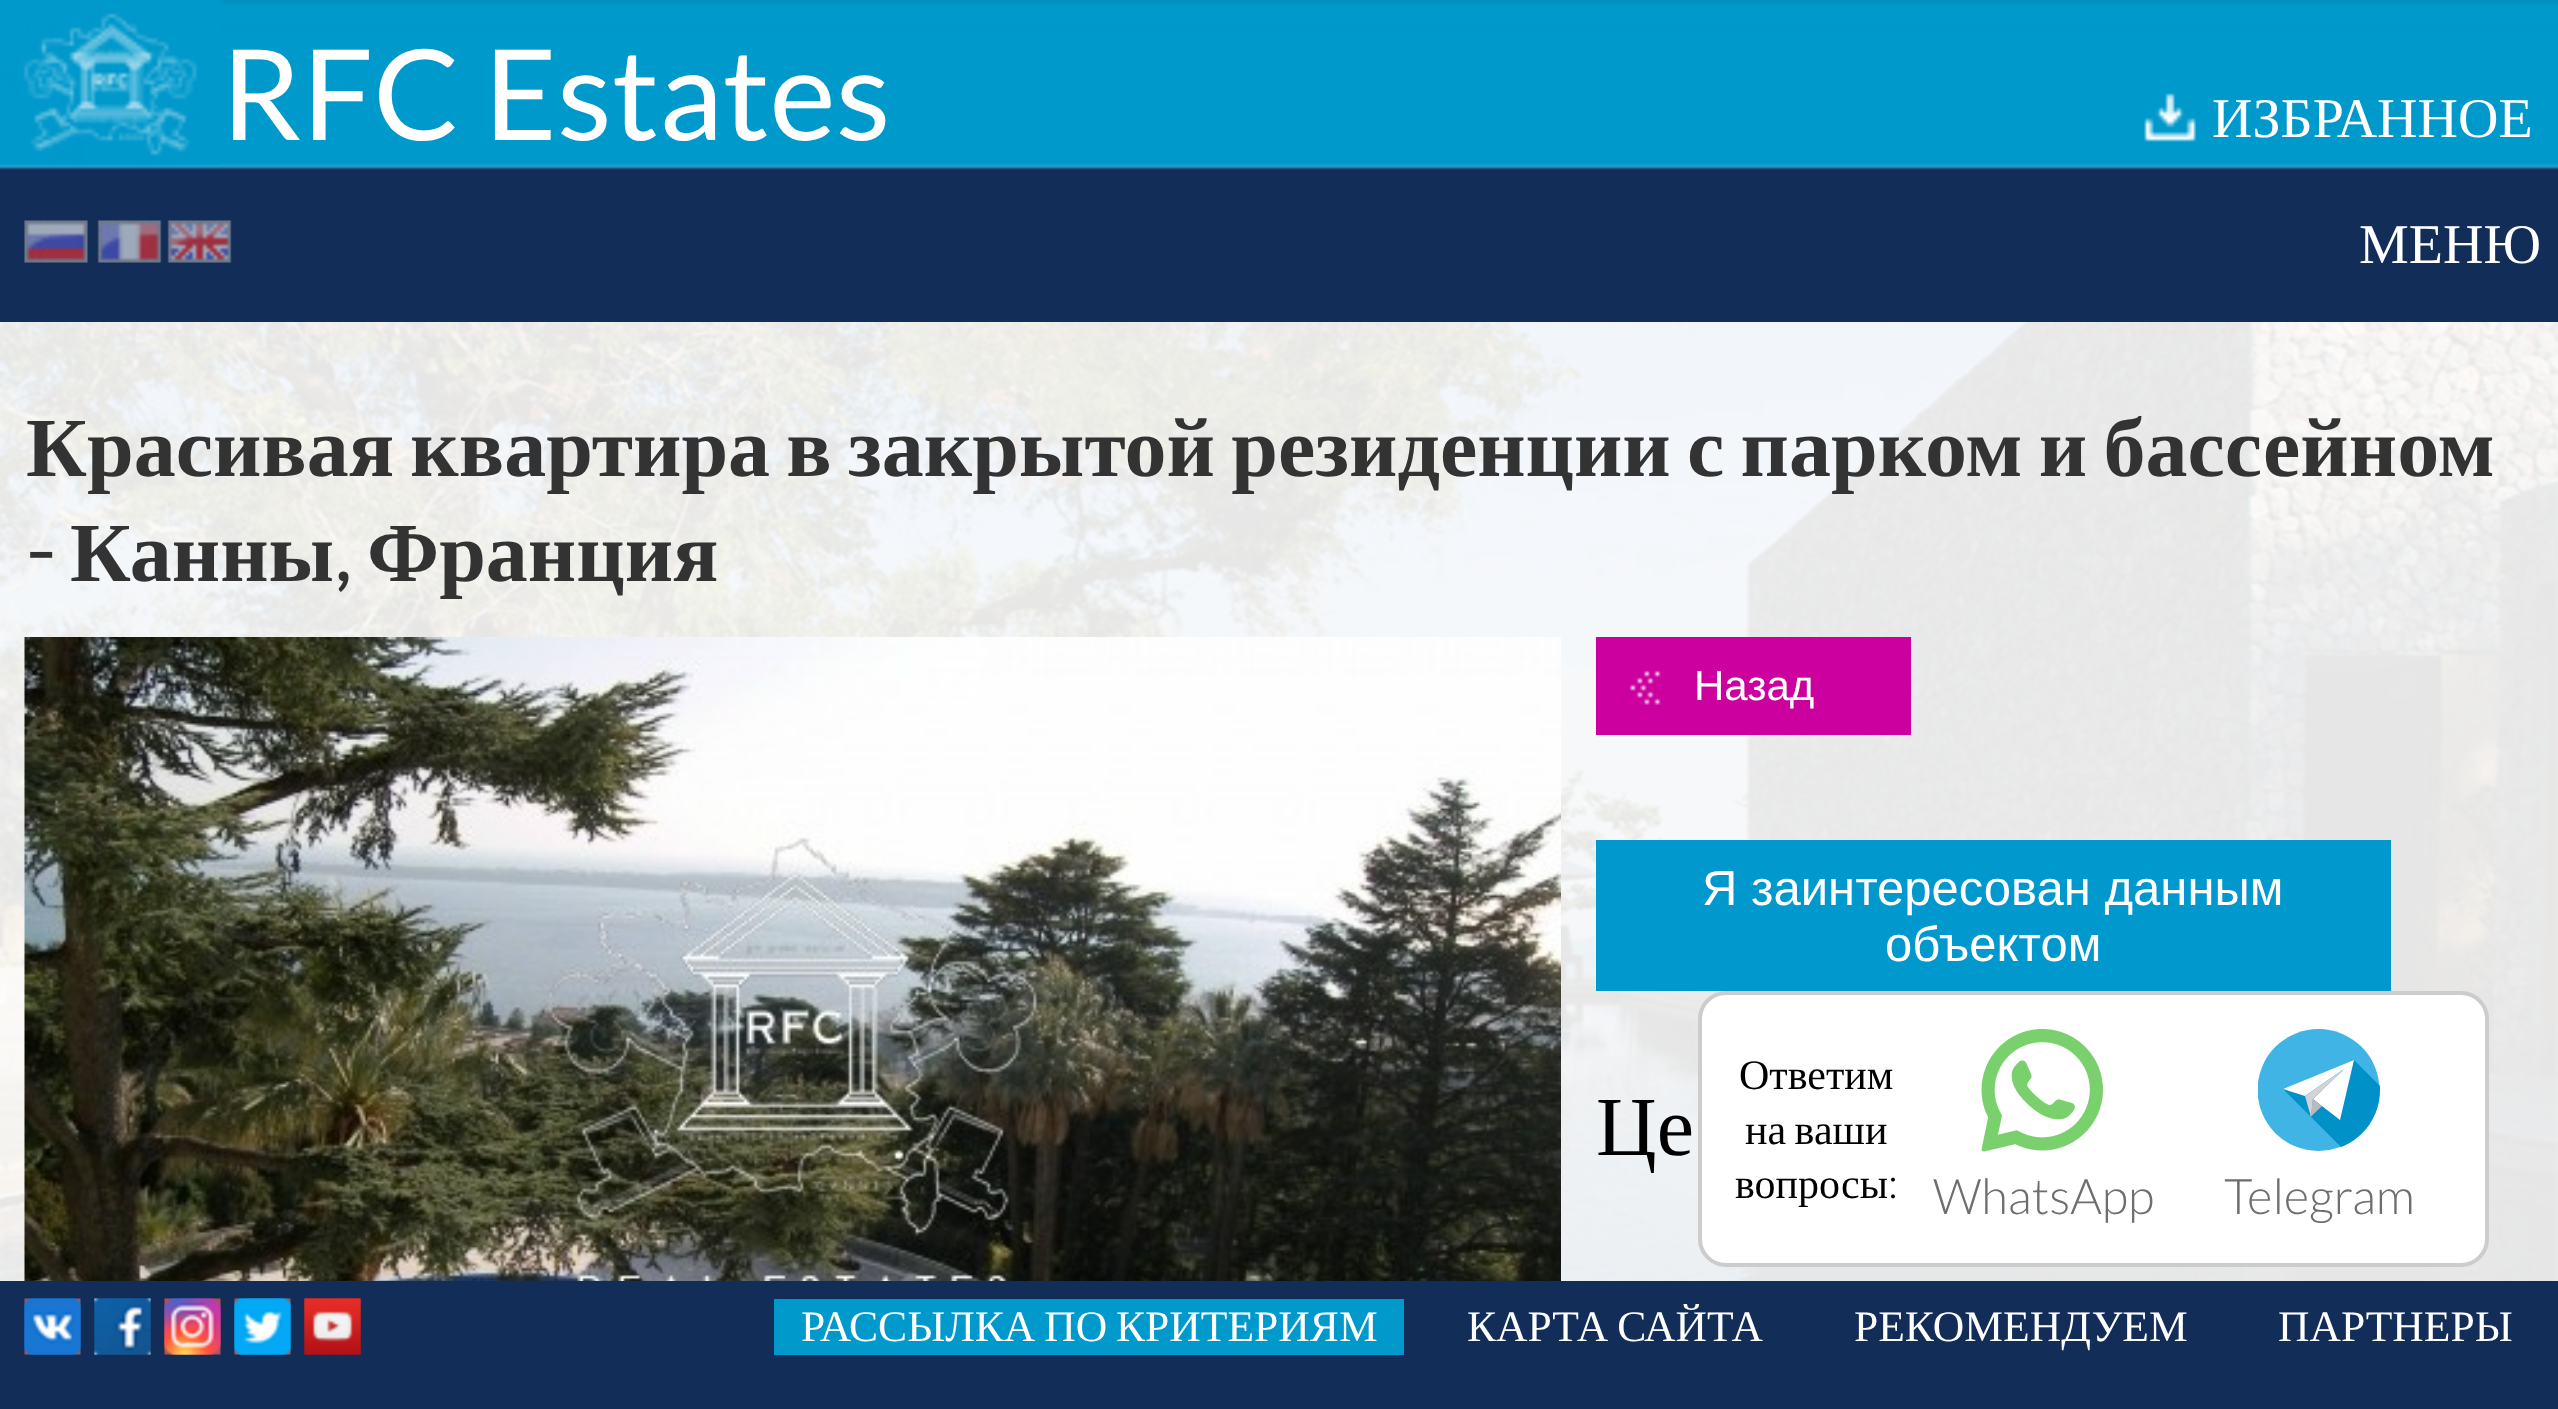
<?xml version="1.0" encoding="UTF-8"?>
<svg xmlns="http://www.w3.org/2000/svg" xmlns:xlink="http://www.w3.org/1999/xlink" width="2558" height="1409">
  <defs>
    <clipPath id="clip1"><rect x="2258" y="1029" width="122" height="123" /></clipPath>
  </defs>
  <rect width="100%" height="100%" fill="#ffffff" />
  <rect y="170" width="2558" height="152" fill="#132d59" />
  <image x="0" y="0" width="2558" height="170" xlink:href="image1.png" />
  <image x="0" y="0" width="221" height="165" xlink:href="image2.png" />
  <image x="2144" y="93" width="52" height="49" xlink:href="image3.png" />
  <image x="24" y="220" width="64" height="43" xlink:href="image4.png" />
  <image x="97" y="220" width="65" height="43" xlink:href="image5.png" />
  <image x="167" y="220" width="65" height="43" xlink:href="image6.png" />
  <image x="0" y="322" width="2558" height="959" xlink:href="image7.png" />
  <image x="24" y="637" width="1537" height="644" xlink:href="image8.png" />
  <rect x="1596" y="637" width="315" height="98" fill="#cc009f" />
  <image x="1629" y="670" width="32" height="35" xlink:href="image9.png" />
  <rect x="1596" y="840" width="795" height="151" fill="#0198cd" />
  <rect x="1700" y="993" width="787" height="272" rx="26" fill="#ffffff" stroke="#cccccc" stroke-width="4" />
  <image x="1981" y="1029" width="122" height="123" xlink:href="image10.png" />
  <g clip-path="url(#clip1)">
    <circle cx="2318.5" cy="1090" r="61" fill="#41b4e6" />
  </g>
  <path d="M 2380 1090 v -4 l -26 -26 l -71 29 l 58 58 c 23 -9 39 -31 39 -57 z" fill="#0091c8" />
  <path d="M 2313 1099 l 27 21 l 14 -60 l -71 29 l 22 7 l 39 -27 z" fill="#ffffff" />
  <path d="M 2305 1096 l 6 21 l 2 -18 l 31 -30 z" fill="#d2d2d7" />
  <path d="M 2322 1106 l -11.5 11 l 2.5 -18 z" fill="#b9b9be" />
  <rect y="1281" width="2558" height="128" fill="#132d59" />
  <image x="24" y="1298" width="57" height="57" xlink:href="image11.png" />
  <image x="24" y="1298" width="57" height="57" xlink:href="image12.png" />
  <image x="94" y="1298" width="57" height="57" xlink:href="image13.png" />
  <image x="94" y="1298" width="57" height="57" xlink:href="image14.png" />
  <image x="164" y="1298" width="57" height="57" xlink:href="image15.png" />
  <image x="164" y="1298" width="57" height="57" xlink:href="image16.png" />
  <image x="234" y="1298" width="57" height="57" xlink:href="image17.png" />
  <image x="234" y="1298" width="57" height="57" xlink:href="image18.png" />
  <image x="304" y="1298" width="57" height="57" xlink:href="image19.png" />
  <image x="304" y="1298" width="57" height="57" xlink:href="image20.png" />
  <rect x="774" y="1299" width="630" height="56" fill="#0099cc" />
  <text x="221" y="140" style="font-family: Lato; font-size: 126px; fill: #ffffff">RFC Estates</text>
  <text x="2212" y="137" style="font-family: Liberation Serif; font-size: 56px; fill: #ffffff">ИЗБРАННОЕ</text>
  <text x="2359" y="263" style="font-family: Liberation Serif; font-size: 56px; fill: #ffffff">МЕНЮ</text>
  <text x="26" y="476" word-spacing="-4.75" style="font-family: Liberation Serif; font-size: 84px; font-weight: bold; fill: #333333">Красивая квартира в закрытой резиденции с парком и бассейном</text>
  <text x="26" y="581" style="font-family: Lato; font-size: 84px; font-weight: bold; fill: #333333">-</text>
  <text x="70" y="581" style="font-family: Liberation Serif; font-size: 84px; font-weight: bold; fill: #333333">Канны</text>
  <text x="367" y="581" style="font-family: Liberation Serif; font-size: 84px; font-weight: bold; fill: #333333">Франция</text>
  <text x="334" y="581" style="font-family: Lato; font-size: 84px; font-weight: bold; fill: #333333">,</text>
  <text x="1694" y="700" style="font-family: Liberation Sans; font-size: 42px; fill: #ffffff">Назад</text>
  <text x="1702" y="905" style="font-family: Liberation Sans; font-size: 49px; fill: #ffffff">Я заинтересован данным</text>
  <text x="1885" y="961" style="font-family: Liberation Sans; font-size: 49px; fill: #ffffff">объектом</text>
  <text x="1596" y="1155" style="font-family: Liberation Serif; font-size: 84px; fill: #000000">Це</text>
  <text x="1739" y="1089" style="font-family: Liberation Serif; font-size: 42px; fill: #000000">Ответим</text>
  <text x="1745" y="1144" word-spacing="-2" style="font-family: Liberation Serif; font-size: 42px; fill: #000000">на ваши</text>
  <text x="1735" y="1198" style="font-family: Liberation Serif; font-size: 42px; fill: #000000">вопросы</text>
  <text x="1888" y="1198" style="font-family: Lato; font-size: 42px; font-weight: 300; fill: #000000">:</text>
  <text x="1933" y="1214" style="font-family: Lato; font-size: 49px; font-weight: 300; fill: #6e6e6e">WhatsApp</text>
  <text x="2224" y="1214" style="font-family: Lato; font-size: 49px; font-weight: 300; fill: #6e6e6e">Telegram</text>
  <text x="801" y="1341" word-spacing="-2" style="font-family: Liberation Serif; font-size: 43.6px; fill: #ffffff">РАССЫЛКА ПО КРИТЕРИЯМ</text>
  <text x="1467" y="1341" word-spacing="-2" style="font-family: Liberation Serif; font-size: 43.6px; fill: #ffffff">КАРТА САЙТА</text>
  <text x="1854" y="1341" style="font-family: Liberation Serif; font-size: 43.6px; fill: #ffffff">РЕКОМЕНДУЕМ</text>
  <text x="2278" y="1341" style="font-family: Liberation Serif; font-size: 43.6px; fill: #ffffff">ПАРТНЕРЫ</text>
</svg>
